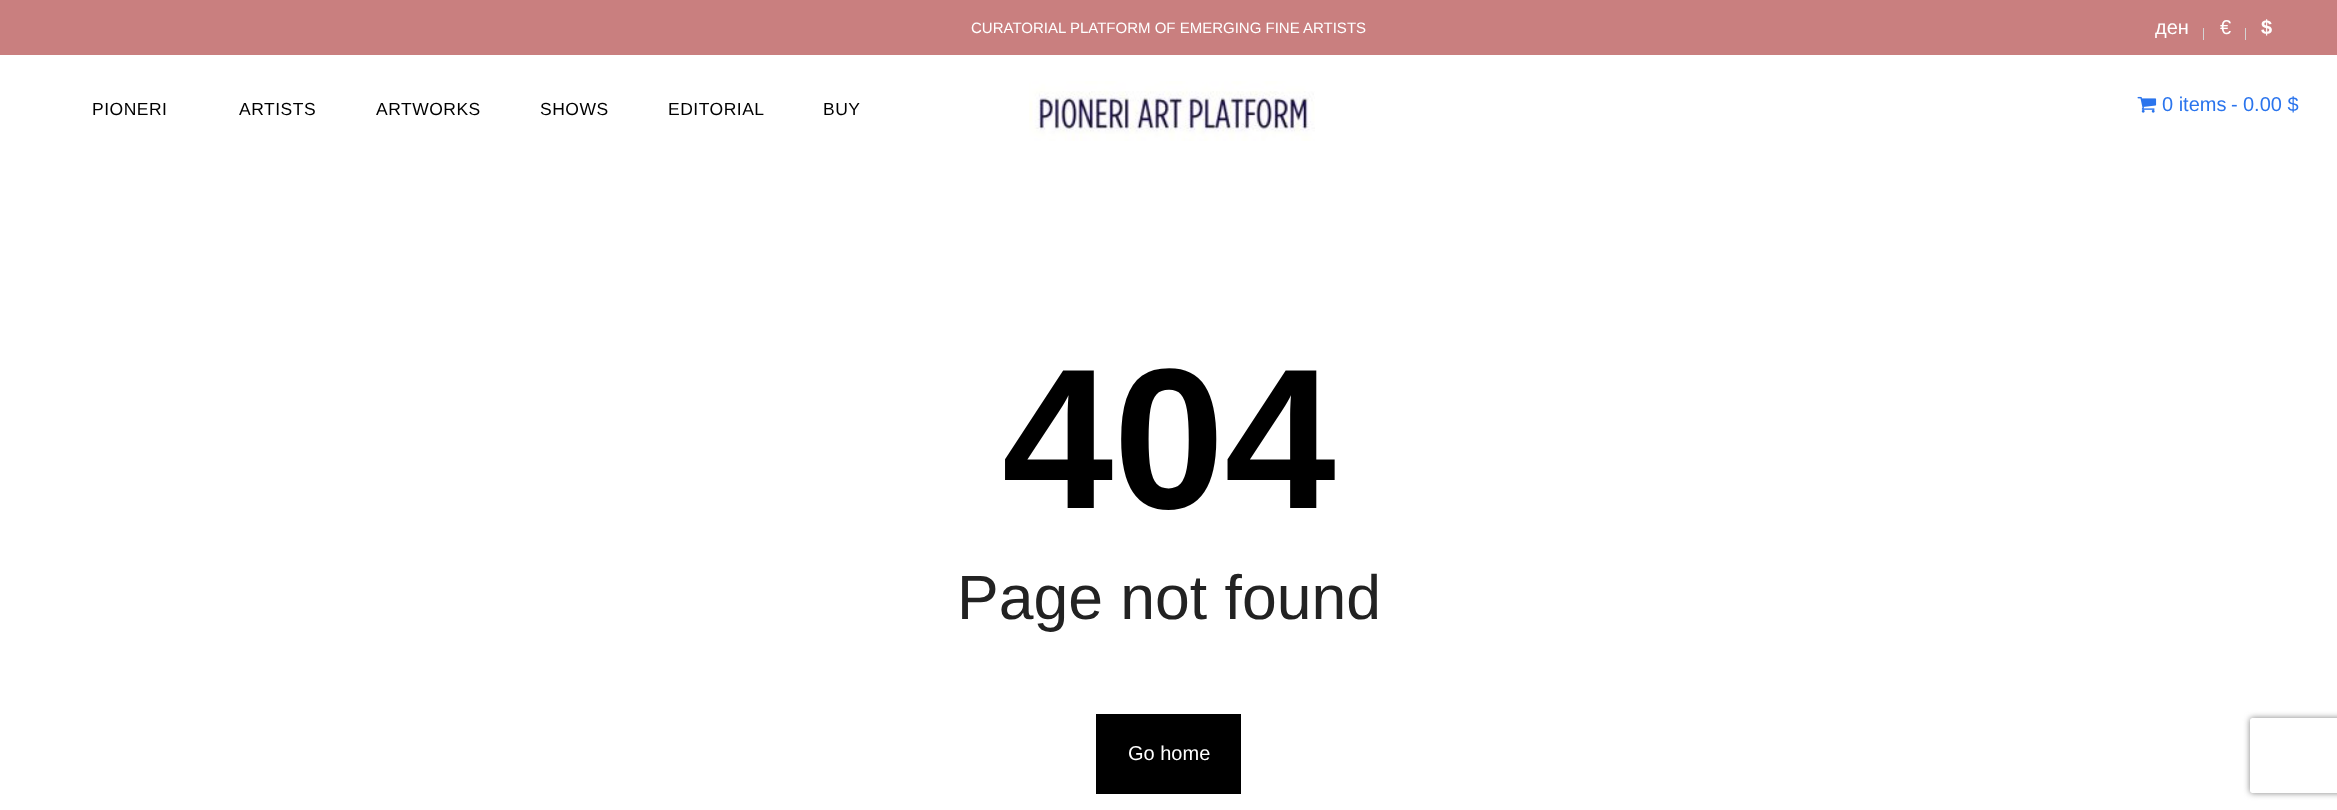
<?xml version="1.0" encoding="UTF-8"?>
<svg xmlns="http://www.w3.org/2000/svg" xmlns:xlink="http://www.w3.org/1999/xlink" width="2337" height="810">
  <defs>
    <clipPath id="clip1"><path d="M 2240 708 h 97 v 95 h -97 z m 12.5 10 h 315 c 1.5 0 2.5 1 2.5 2.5 v 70 c 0 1.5 -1 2.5 -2.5 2.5 h -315 c -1.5 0 -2.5 -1 -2.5 -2.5 v -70 c 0 -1.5 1 -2.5 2.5 -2.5 z" clip-rule="evenodd" /></clipPath>
  </defs>
  <rect width="100%" height="100%" fill="#ffffff" />
  <rect width="2337" height="55" fill="#c97f7f" />
  <rect x="2203" y="28" width="1" height="12" fill="#d4d4d4" />
  <rect x="2245" y="28" width="1" height="12" fill="#d4d4d4" />
  <image x="1029" y="81" width="286" height="60" xlink:href="image1.png" />
  <image x="2137" y="96" width="20" height="17" xlink:href="image2.png" />
  <rect x="1096" y="714" width="145" height="80" fill="#000000" />
  <g clip-path="url(#clip1)">
    <rect x="2250" y="718" width="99" height="75" rx="2.5" fill="#808080" filter="blur(3px)" />
  </g>
  <text x="971" y="33" style="font-family: Liberation Sans; font-size: 15px; fill: #ffffff">CURATORIAL PLATFORM OF EMERGING FINE ARTISTS</text>
  <text x="2155" y="34" style="font-family: Liberation Sans; font-size: 20px; fill: #ffffff">ден</text>
  <text x="2220" y="34" style="font-family: Liberation Sans; font-size: 20px; fill: #ffffff">€</text>
  <text x="2261" y="34" style="font-family: Liberation Sans; font-size: 20px; font-weight: bold; fill: #ffffff">$</text>
  <text x="92" y="115" style="font-family: Liberation Sans; font-size: 17.5px; letter-spacing: 0.5px; fill: #000000">PIONERI</text>
  <text x="239" y="115" style="font-family: Liberation Sans; font-size: 17.5px; letter-spacing: 0.5px; fill: #000000">ARTISTS</text>
  <text x="376" y="115" style="font-family: Liberation Sans; font-size: 17.5px; letter-spacing: 0.5px; fill: #000000">ARTWORKS</text>
  <text x="540" y="115" style="font-family: Liberation Sans; font-size: 17.5px; letter-spacing: 0.5px; fill: #000000">SHOWS</text>
  <text x="668" y="115" style="font-family: Liberation Sans; font-size: 17.5px; letter-spacing: 0.5px; fill: #000000">EDITORIAL</text>
  <text x="823" y="115" style="font-family: Liberation Sans; font-size: 17.5px; letter-spacing: 0.5px; fill: #000000">BUY</text>
  <text x="2162" y="111" style="font-family: Liberation Sans; font-size: 20px; fill: #2a74ed">0 items</text>
  <text x="2231" y="111" style="font-family: Liberation Sans; font-size: 20px; fill: #2a74ed">-</text>
  <text x="2243" y="111" style="font-family: Liberation Sans; font-size: 20px; fill: #2a74ed">0.00 $</text>
  <text x="1002" y="508" style="font-family: Liberation Sans; font-size: 200px; font-weight: bold; fill: #000000">404</text>
  <text x="957" y="619" style="font-family: Liberation Sans; font-size: 62.5px; fill: #222222">Page not found</text>
  <text x="1128" y="760" style="font-family: Liberation Sans; font-size: 20px; fill: #ffffff">Go home</text>
</svg>
